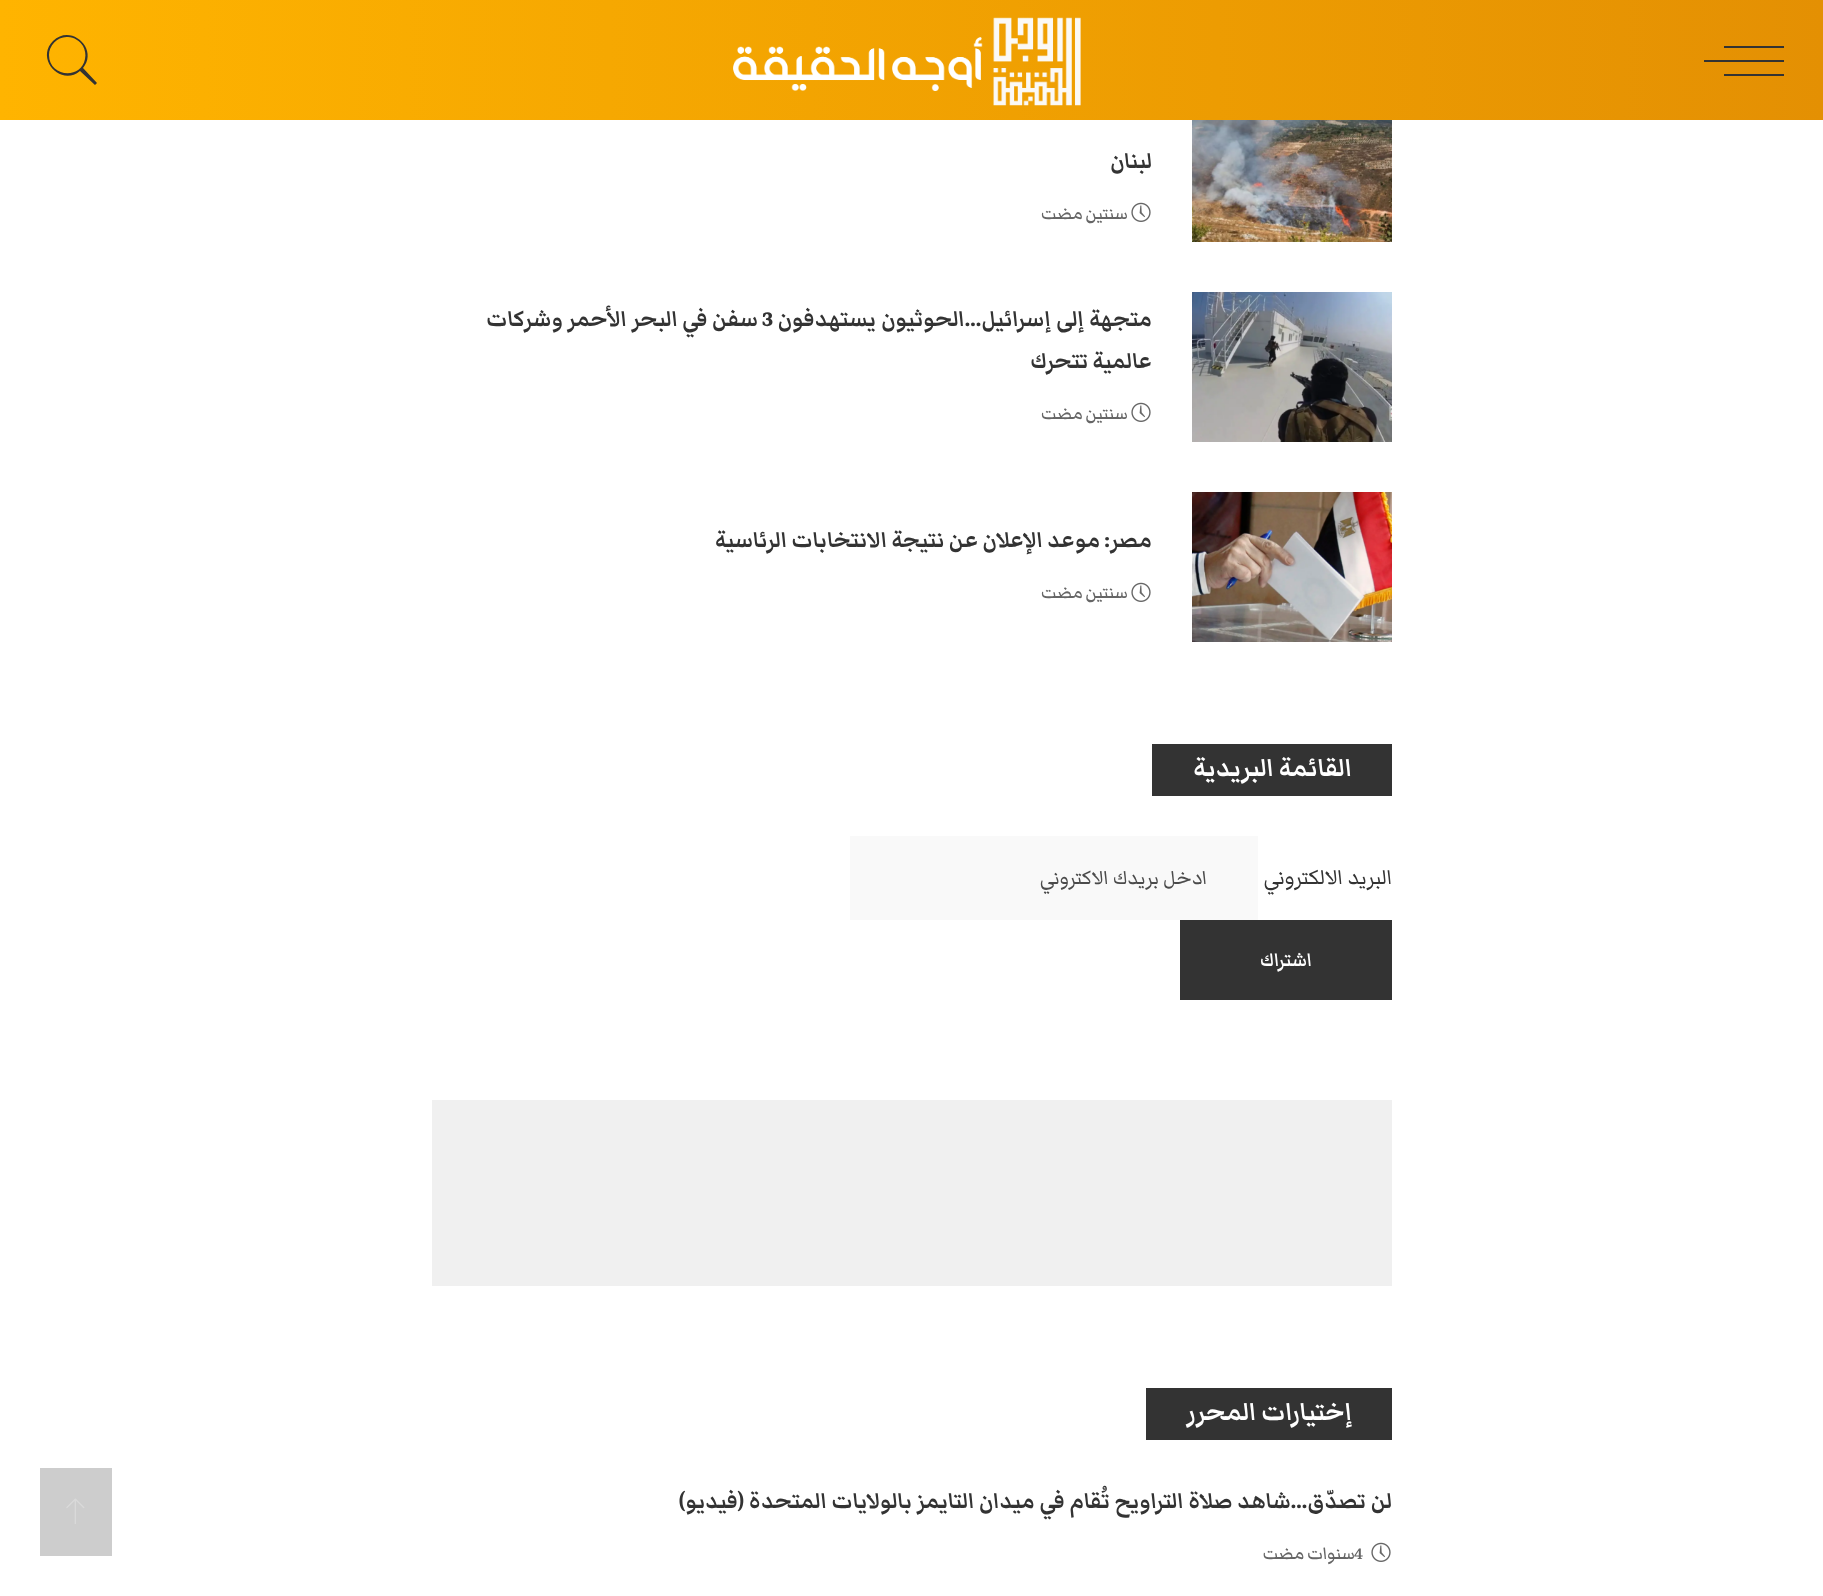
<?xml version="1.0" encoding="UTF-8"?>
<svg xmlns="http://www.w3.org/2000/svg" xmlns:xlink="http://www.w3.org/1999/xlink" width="1823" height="1596">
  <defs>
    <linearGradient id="g1" gradientUnits="userSpaceOnUse" x1="0" y1="60" x2="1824" y2="60"><stop offset="0" stop-color="#ffb400" /><stop offset="1" stop-color="#e49003" /></linearGradient>
  </defs>
  <rect width="100%" height="100%" fill="#ffffff" />
  <rect width="1823" height="120" fill="url(#g1)" />
  <rect x="1704" y="60" width="80" height="2" fill="#333333" />
  <rect x="1724" y="46" width="60" height="2" fill="#333333" />
  <rect x="1724" y="74" width="60" height="2" fill="#333333" />
  <image x="733" y="17" width="348" height="89" xlink:href="image1.png" />
  <path d="M 97 83 l -14 -15 c 16 -19 -12 -45 -30 -27 c -18 18 8 46 27 30 l 15 14 z m -48 -28 c 0 -10 9 -19 19 -18 c 6 0 12 4 15 9 c 2 4 3 8 2 13 c -4 21 -36 18 -36 -4 z" fill="#333333" />
  <image x="1192" y="120" width="200" height="122" xlink:href="image2.png" />
  <image x="1131" y="202" width="20" height="20" xlink:href="image3.png" />
  <image x="1192" y="292" width="200" height="150" xlink:href="image4.png" />
  <image x="1131" y="402" width="20" height="20" xlink:href="image3.png" />
  <image x="1192" y="492" width="200" height="150" xlink:href="image5.png" />
  <image x="1131" y="582" width="20" height="20" xlink:href="image3.png" />
  <rect x="1152" y="744" width="240" height="52" fill="#333333" />
  <rect x="850" y="836" width="408" height="84" fill="#f9f9f9" />
  <rect x="1180" y="920" width="212" height="80" fill="#333333" />
  <rect x="432" y="1100" width="960" height="186" fill="#f0f0f0" />
  <rect x="1146" y="1388" width="246" height="52" fill="#333333" />
  <image x="1371" y="1542" width="20" height="20" xlink:href="image3.png" />
  <rect x="40" y="1468" width="72" height="88" fill="#cdcdcd" />
  <image x="66" y="1498" width="19" height="26" xlink:href="image6.png" />
  <text x="1152" y="168" style="font-family: Markazi Text; font-size: 28px; font-weight: bold; direction: rtl; fill: #333333">لبنان</text>
  <text x="1128" y="219" word-spacing="-1" style="font-family: Markazi Text; font-size: 22px; font-weight: 500; letter-spacing: 0.75px; direction: rtl; fill: #666666">سنتين مضت</text>
  <text x="1152" y="326" word-spacing="1" style="font-family: Markazi Text; font-size: 28px; font-weight: bold; direction: rtl; fill: #333333">متجهة إلى إسرائيل…الحوثيون يستهدفون</text>
  <text x="762" y="326" style="font-family: Markazi Text; font-size: 28px; font-weight: bold; fill: #333333">3</text>
  <text x="758" y="326" style="font-family: Markazi Text; font-size: 28px; font-weight: bold; direction: rtl; fill: #333333">سفن في البحر الأحمر وشركات</text>
  <text x="1152" y="368" style="font-family: Markazi Text; font-size: 28px; font-weight: bold; direction: rtl; fill: #333333">عالمية تتحرك</text>
  <text x="1128" y="419" word-spacing="-1" style="font-family: Markazi Text; font-size: 22px; font-weight: 500; letter-spacing: 0.75px; direction: rtl; fill: #666666">سنتين مضت</text>
  <text x="1152" y="547" style="font-family: Markazi Text; font-size: 28px; font-weight: bold; direction: rtl; fill: #333333">مصر: موعد الإعلان عن نتيجة الانتخابات الرئاسية</text>
  <text x="1128" y="598" word-spacing="-1" style="font-family: Markazi Text; font-size: 22px; font-weight: 500; letter-spacing: 0.75px; direction: rtl; fill: #666666">سنتين مضت</text>
  <text x="1352" y="776" style="font-family: Markazi Text; font-size: 32px; font-weight: bold; direction: rtl; fill: #ffffff">القائمة البريدية</text>
  <text x="1392" y="884" style="font-family: Markazi Text; font-size: 27px; direction: rtl; fill: #333333">البريد الالكتروني</text>
  <text x="1207" y="884" style="font-family: Markazi Text; font-size: 25.25px; direction: rtl; fill: #4b4b4b">ادخل بريدك الاكتروني</text>
  <text x="1312" y="966" style="font-family: Markazi Text; font-size: 24px; font-weight: 600; direction: rtl; fill: #ffffff">اشتراك</text>
  <text x="1352" y="1420" style="font-family: Markazi Text; font-size: 32px; font-weight: bold; direction: rtl; fill: #ffffff">إختيارات المحرر</text>
  <text x="1392" y="1508" word-spacing="0.4" style="font-family: Markazi Text; font-size: 28px; font-weight: bold; direction: rtl; fill: #333333">لن تصدّق…شاهد صلاة التراويح تُقام في ميدان التايمز بالولايات المتحدة (فيديو)</text>
  <text x="1355" y="1559" word-spacing="-1" style="font-family: Markazi Text; font-size: 22px; font-weight: 500; letter-spacing: 0.75px; direction: rtl; fill: #666666">سنوات مضت</text>
  <text x="1354" y="1559" style="font-family: Markazi Text; font-size: 22px; font-weight: 500; letter-spacing: 0.75px; fill: #666666">4</text>
</svg>
